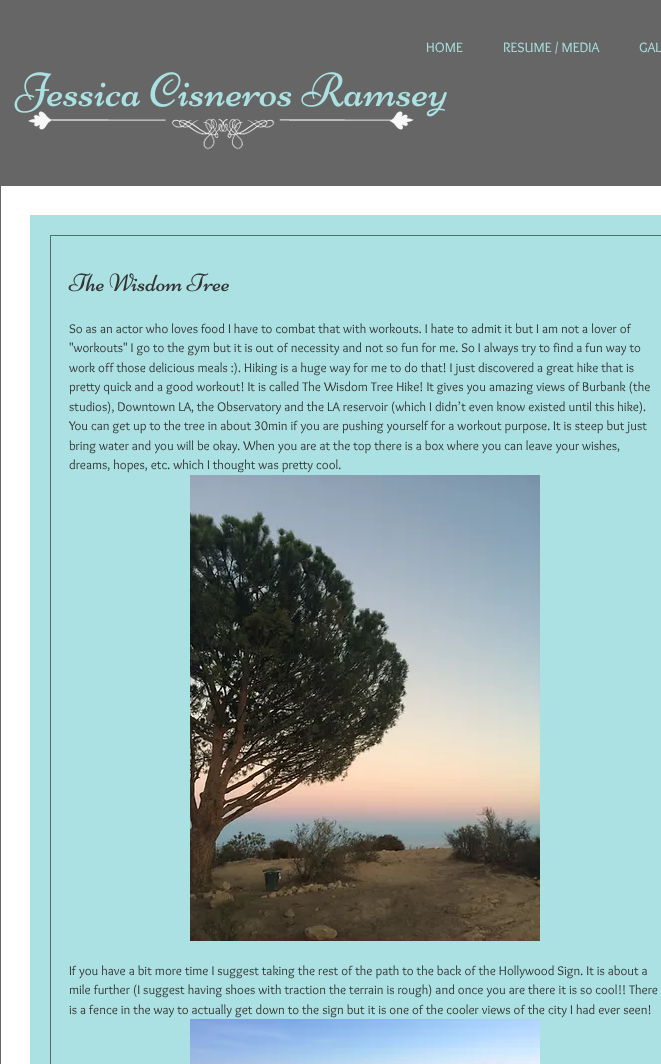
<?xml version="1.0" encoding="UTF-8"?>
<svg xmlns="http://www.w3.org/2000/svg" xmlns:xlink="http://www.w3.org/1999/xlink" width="661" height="1064">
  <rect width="100%" height="100%" fill="#ffffff" />
  <rect width="661" height="185" fill="#666666" />
  <image x="14" y="72" width="433" height="45" xlink:href="image1.png" />
  <image x="28" y="111" width="386" height="39" xlink:href="image2.png" />
  <rect x="0.5" y="185.5" width="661" height="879" fill="none" stroke="#666666" />
  <rect x="30" y="215" width="631" height="849" fill="#abe1e2" />
  <rect x="50.5" y="235.5" width="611" height="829" fill="none" stroke="#666666" />
  <image x="68" y="273" width="161" height="19" xlink:href="image3.png" />
  <image x="190" y="475" width="350" height="466" xlink:href="image4.png" />
  <image x="190" y="1019" width="350" height="45" xlink:href="image5.png" />
  <text x="426" y="52" style="font-family: Overlock; font-size: 14px; fill: #abe1e2">HOME</text>
  <text x="503" y="52" style="font-family: Overlock; font-size: 14px; fill: #abe1e2">RESUME / MEDIA</text>
  <text x="639" y="52" style="font-family: Overlock; font-size: 14px; fill: #abe1e2">GAL</text>
  <text x="69" y="333" style="font-family: Overlock; font-size: 13px; fill: #333333">So as an actor who loves food I have to combat that with workouts. I hate to admit it but I am not a lover of</text>
  <text x="69" y="352" style="font-family: Overlock; font-size: 13px; fill: #333333">"workouts" I go to the gym but it is out of necessity and not so fun for me. So I always try to find a fun way to</text>
  <text x="69" y="372" style="font-family: Overlock; font-size: 13px; fill: #333333">work off those delicious meals :). Hiking is a huge way for me to do that! I just discovered a great hike that is</text>
  <text x="69" y="391" style="font-family: Overlock; font-size: 13px; fill: #333333">pretty quick and a good workout! It is called The Wisdom Tree Hike! It gives you amazing views of Burbank (the</text>
  <text x="69" y="411" style="font-family: Overlock; font-size: 13px; fill: #333333">studios), Downtown LA, the Observatory and the LA reservoir (which I didn’t even know existed until this hike).</text>
  <text x="69" y="430" style="font-family: Overlock; font-size: 13px; fill: #333333">You can get up to the tree in about 30min if you are pushing yourself for a workout purpose. It is steep but just</text>
  <text x="69" y="450" style="font-family: Overlock; font-size: 13px; fill: #333333">bring water and you will be okay. When you are at the top there is a box where you can leave your wishes,</text>
  <text x="69" y="469" style="font-family: Overlock; font-size: 13px; fill: #333333">dreams, hopes, etc. which I thought was pretty cool.</text>
  <text x="69" y="975" style="font-family: Overlock; font-size: 13px; fill: #333333">If you have a bit more time I suggest taking the rest of the path to the back of the Hollywood Sign. It is about a</text>
  <text x="69" y="994" style="font-family: Overlock; font-size: 13px; fill: #333333">mile further (I suggest having shoes with traction the terrain is rough) and once you are there it is so cool!! There</text>
  <text x="69" y="1014" style="font-family: Overlock; font-size: 13px; fill: #333333">is a fence in the way to actually get down to the sign but it is one of the cooler views of the city I had ever seen!</text>
</svg>
